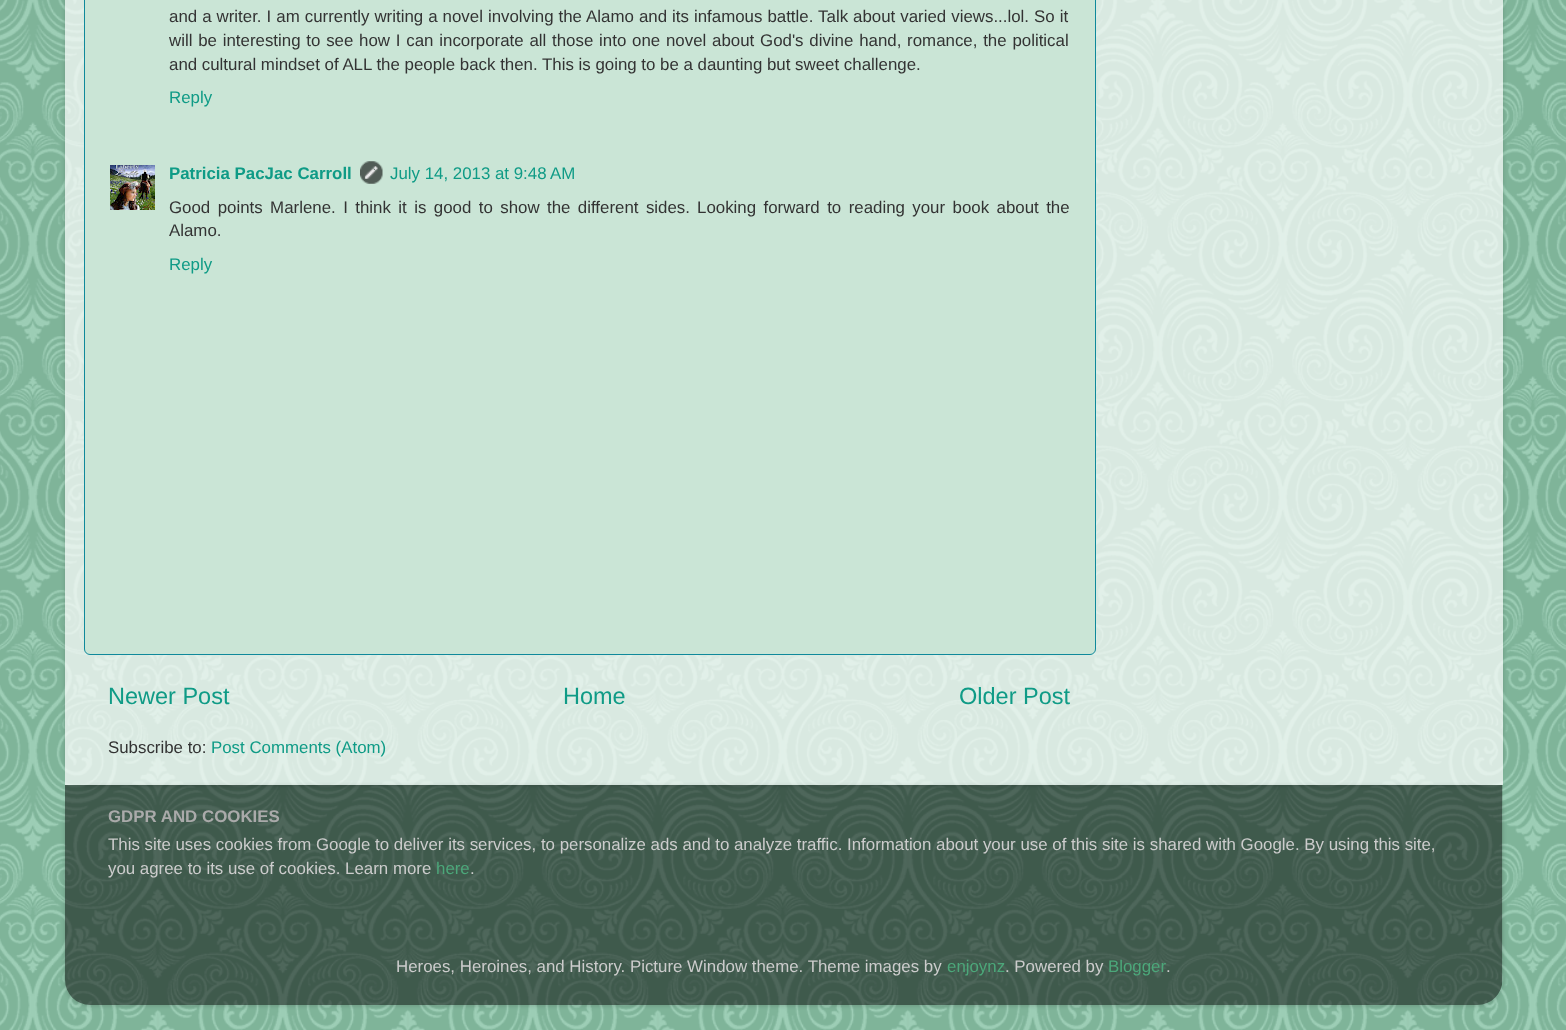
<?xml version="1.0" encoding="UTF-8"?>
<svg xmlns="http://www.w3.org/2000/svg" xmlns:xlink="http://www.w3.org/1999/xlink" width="1566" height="1030">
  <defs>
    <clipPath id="clip1"><path d="M 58 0 h 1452 v 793 h -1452 z m 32 -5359 h 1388 c 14 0 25 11 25 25 v 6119 h -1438 v -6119 c 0 -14 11 -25 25 -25 z" clip-rule="evenodd" /></clipPath>
    <clipPath id="clip2"><path d="M 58 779 h 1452 v 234 h -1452 z m 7 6 h 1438 v 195 c 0 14 -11 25 -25 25 h -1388 c -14 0 -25 -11 -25 -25 z" clip-rule="evenodd" /></clipPath>
  </defs>
  <rect width="100%" height="100%" fill="#9fe1c0" />
  <image x="0" y="0" width="1566" height="1030" xlink:href="image1.png" />
  <g clip-path="url(#clip1)">
    <rect x="65" y="-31" width="1438" height="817" rx="25" fill="#000000" fill-opacity="0.15" filter="blur(2px)" />
  </g>
  <rect x="65" width="1438" height="785" fill="#ffffff" fill-opacity="0.7" />
  <rect x="84.5" y="-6.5" width="1011" height="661" rx="5.5" fill="#cae5d6" stroke="#0f899b" />
  <image x="110" y="165" width="45" height="45" xlink:href="image2.png" />
  <image x="360" y="161" width="23" height="23" xlink:href="image3.png" />
  <g clip-path="url(#clip2)">
    <rect x="65" y="786" width="1438" height="220" rx="25" fill="#000000" fill-opacity="0.15" filter="blur(2px)" />
  </g>
  <image x="65" y="785" width="1438" height="220" xlink:href="image4.png" />
  <text x="169" y="22" word-spacing="0.35" style="font-family: Liberation Sans; font-size: 16.88px; fill: #333333">and a writer. I am currently writing a novel involving the Alamo and its infamous battle. Talk about varied views...lol. So it</text>
  <text x="169" y="46" word-spacing="1.1" style="font-family: Liberation Sans; font-size: 16.88px; fill: #333333">will be interesting to see how I can incorporate all those into one novel about God's divine hand, romance, the political</text>
  <text x="169" y="70" style="font-family: Liberation Sans; font-size: 16.88px; fill: #333333">and cultural mindset of ALL the people back then. This is going to be a daunting but sweet challenge.</text>
  <text x="169" y="103" style="font-family: Liberation Sans; font-size: 16.88px; fill: #0f9b86">Reply</text>
  <text x="169" y="179" style="font-family: Liberation Sans; font-size: 16.88px; font-weight: bold; fill: #0f9b86">Patricia PacJac Carroll</text>
  <text x="390" y="179" style="font-family: Liberation Sans; font-size: 16.88px; fill: #0f9b86">July 14, 2013 at 9:48 AM</text>
  <text x="169" y="213" word-spacing="2.75" style="font-family: Liberation Sans; font-size: 16.88px; fill: #333333">Good points Marlene. I think it is good to show the different sides.</text>
  <text x="697" y="213" word-spacing="2.75" style="font-family: Liberation Sans; font-size: 16.88px; fill: #333333">Looking forward to reading your book about the</text>
  <text x="169" y="236" style="font-family: Liberation Sans; font-size: 16.88px; fill: #333333">Alamo.</text>
  <text x="169" y="270" style="font-family: Liberation Sans; font-size: 16.88px; fill: #0f9b86">Reply</text>
  <text x="108" y="704" style="font-family: Liberation Sans; font-size: 23.5px; fill: #0f9b86">Newer Post</text>
  <text x="563" y="704" style="font-family: Liberation Sans; font-size: 23.5px; fill: #0f9b86">Home</text>
  <text x="959" y="704" style="font-family: Liberation Sans; font-size: 23.5px; fill: #0f9b86">Older Post</text>
  <text x="108" y="753" style="font-family: Liberation Sans; font-size: 16.88px; fill: #333333">Subscribe to:</text>
  <text x="211" y="753" style="font-family: Liberation Sans; font-size: 16.88px; fill: #0f9b86">Post Comments (Atom)</text>
  <text x="108" y="822" style="font-family: Liberation Sans; font-size: 16.88px; font-weight: bold; fill: #aaaaaa">GDPR AND COOKIES</text>
  <text x="108" y="850" style="font-family: Liberation Sans; font-size: 16.88px; fill: #cccccc">This site uses cookies from Google to deliver its services, to personalize ads and to analyze traffic. Information about your use of this site is shared with Google. By using this site,</text>
  <text x="108" y="874" style="font-family: Liberation Sans; font-size: 16.88px; fill: #cccccc">you agree to its use of cookies. Learn more</text>
  <text x="436" y="874" style="font-family: Liberation Sans; font-size: 16.88px; fill: #4ca77a">here</text>
  <text x="470" y="874" style="font-family: Liberation Sans; font-size: 16.88px; fill: #cccccc">.</text>
  <text x="396" y="972" style="font-family: Liberation Sans; font-size: 16.88px; fill: #cccccc">Heroes, Heroines, and History. Picture Window theme. Theme images by</text>
  <text x="947" y="972" style="font-family: Liberation Sans; font-size: 16.88px; fill: #4ca77a">enjoynz</text>
  <text x="1005" y="972" style="font-family: Liberation Sans; font-size: 16.88px; fill: #cccccc">. Powered by</text>
  <text x="1108" y="972" style="font-family: Liberation Sans; font-size: 16.88px; fill: #4ca77a">Blogger</text>
  <text x="1166" y="972" style="font-family: Liberation Sans; font-size: 16.88px; fill: #cccccc">.</text>
</svg>
